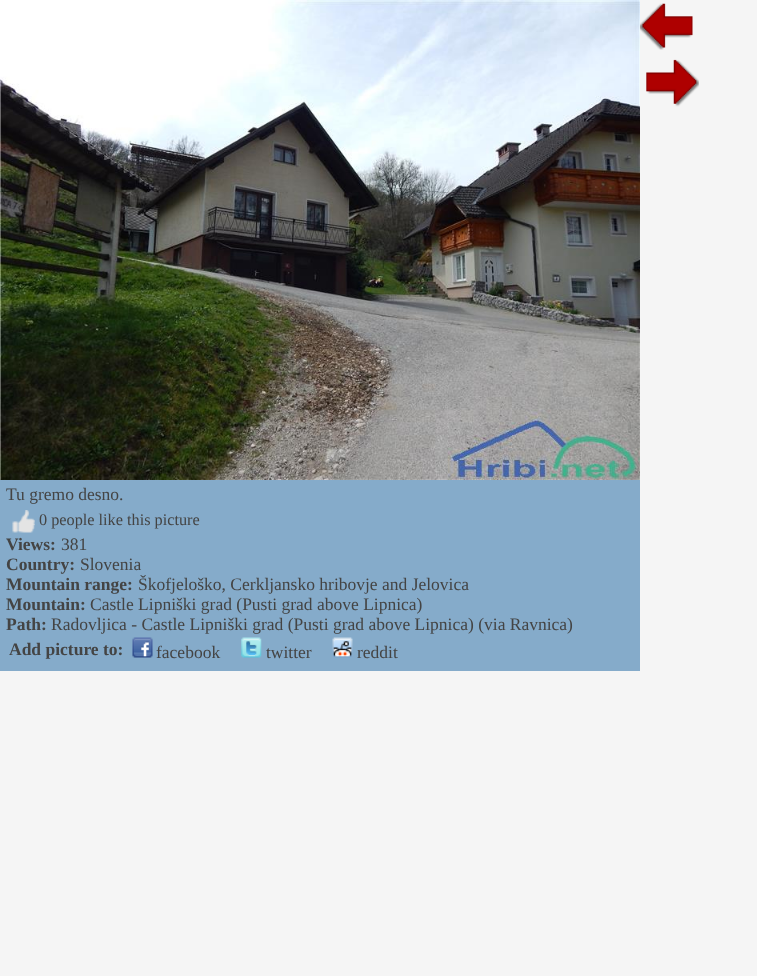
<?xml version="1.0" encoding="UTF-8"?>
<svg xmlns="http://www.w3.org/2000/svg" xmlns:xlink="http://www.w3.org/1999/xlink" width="757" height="976">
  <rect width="100%" height="100%" fill="#f5f5f5" />
  <image x="640" y="3" width="53" height="47" xlink:href="image1.png" />
  <image x="646" y="59" width="53" height="48" xlink:href="image2.png" />
  <rect y="480" width="640" height="191" fill="#85abca" />
  <image x="0" y="0" width="640" height="480" xlink:href="image3.png" />
  <image x="12" y="510" width="23" height="23" xlink:href="image4.png" />
  <image x="132" y="637" width="21" height="21" xlink:href="image5.png" />
  <image x="241" y="637" width="21" height="21" xlink:href="image6.png" />
  <image x="332" y="637" width="21" height="21" xlink:href="image7.png" />
  <text x="6" y="500" style="font-family: Liberation Serif; font-size: 17.5px; fill: #444444">Tu gremo desno.</text>
  <text x="39" y="525" style="font-family: Liberation Serif; font-size: 16.25px; fill: #444444">0 people like this picture</text>
  <text x="6" y="550" style="font-family: Liberation Serif; font-size: 17.5px; font-weight: bold; fill: #444444">Views:</text>
  <text x="61" y="550" style="font-family: Liberation Serif; font-size: 17.5px; fill: #444444">381</text>
  <text x="6" y="570" style="font-family: Liberation Serif; font-size: 17.5px; font-weight: bold; fill: #444444">Country:</text>
  <text x="80" y="570" style="font-family: Liberation Serif; font-size: 17.5px; fill: #444444">Slovenia</text>
  <text x="6" y="590" style="font-family: Liberation Serif; font-size: 17.5px; font-weight: bold; fill: #444444">Mountain range:</text>
  <text x="138" y="590" style="font-family: Liberation Serif; font-size: 17.5px; fill: #444444">Škofjeloško, Cerkljansko hribovje and Jelovica</text>
  <text x="6" y="610" style="font-family: Liberation Serif; font-size: 17.5px; font-weight: bold; fill: #444444">Mountain:</text>
  <text x="90" y="610" style="font-family: Liberation Serif; font-size: 17.5px; fill: #444444">Castle Lipniški grad (Pusti grad above Lipnica)</text>
  <text x="6" y="630" style="font-family: Liberation Serif; font-size: 17.5px; font-weight: bold; fill: #444444">Path:</text>
  <text x="51" y="630" style="font-family: Liberation Serif; font-size: 17.5px; fill: #444444">Radovljica - Castle Lipniški grad (Pusti grad above Lipnica) (via Ravnica)</text>
  <text x="9" y="655" style="font-family: Liberation Serif; font-size: 17.5px; font-weight: bold; fill: #444444">Add picture to:</text>
  <text x="156" y="658" style="font-family: Liberation Serif; font-size: 17.5px; fill: #444444">facebook</text>
  <text x="266" y="658" style="font-family: Liberation Serif; font-size: 17.5px; fill: #444444">twitter</text>
  <text x="357" y="658" style="font-family: Liberation Serif; font-size: 17.5px; fill: #444444">reddit</text>
</svg>
